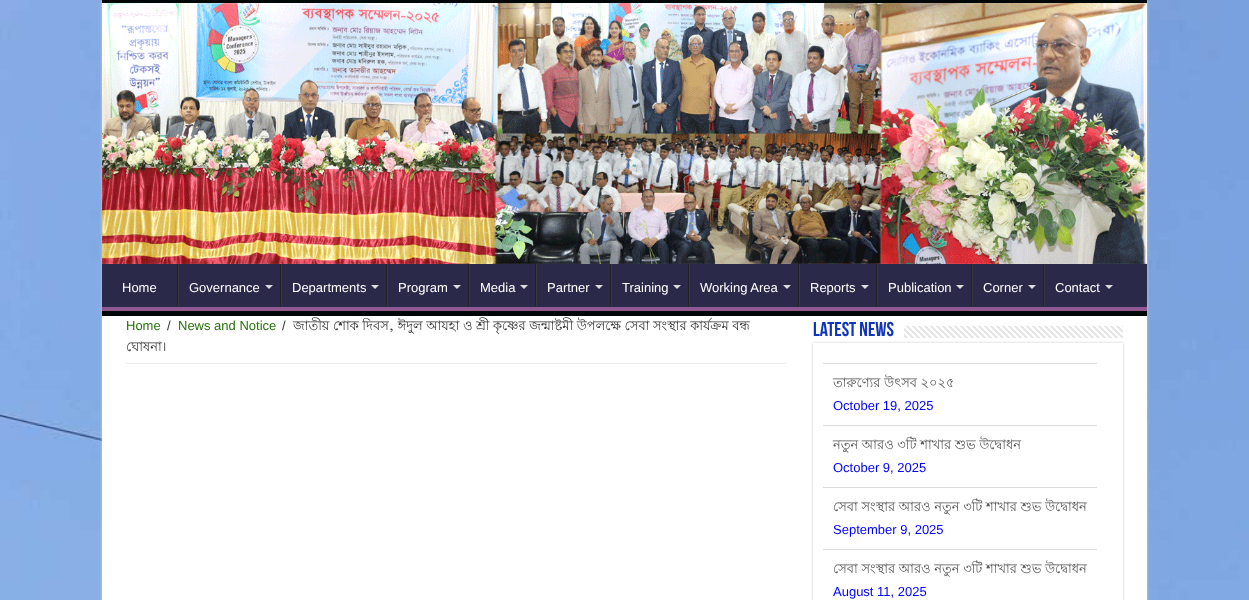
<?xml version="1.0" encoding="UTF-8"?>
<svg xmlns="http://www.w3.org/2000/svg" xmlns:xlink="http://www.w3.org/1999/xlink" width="1249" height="600">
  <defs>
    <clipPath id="clip1"><rect x="102" y="264" width="1045" height="47" /></clipPath>
    <clipPath id="clip2"><path d="M 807 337 h 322 v 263 h -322 z m 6 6 h 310 v 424 h -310 z" clip-rule="evenodd" /></clipPath>
  </defs>
  <rect width="100%" height="100%" fill="#ffffff" />
  <image x="0" y="0" width="1249" height="600" xlink:href="image1.png" />
  <rect x="102" width="1045" height="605" fill="#cacaca" filter="blur(1.5px)" />
  <rect x="102" y="316" width="1045" height="284" fill="#ffffff" />
  <rect x="102" width="1045" height="3" fill="#000807" />
  <image x="102" y="3" width="1045" height="261" xlink:href="image2.png" />
  <rect x="102" y="264" width="1045" height="43" fill="#2b294a" />
  <g clip-path="url(#clip1)">
    <path d="M 3 165 h 1243 v 245 h -1243 z m 98 93 h 1046 v 40 c 0 1 1 9 -1 9 h -1045 l -1 -1 v -48 z" fill="#915791" fill-rule="evenodd" />
  </g>
  <rect x="102" y="311" width="1045" height="5" fill="#000807" />
  <rect x="177" y="264" width="1" height="42" fill="#222222" />
  <rect x="178" y="264" width="1" height="42" fill="#383838" />
  <path d="M 265 285 h 8 l -4 4 z" fill="#dddddd" />
  <rect x="280" y="264" width="1" height="42" fill="#222222" />
  <rect x="281" y="264" width="1" height="42" fill="#383838" />
  <path d="M 371 285 h 8 l -4 4 z" fill="#dddddd" />
  <rect x="386" y="264" width="1" height="42" fill="#222222" />
  <rect x="387" y="264" width="1" height="42" fill="#383838" />
  <path d="M 453 285 h 8 l -4 4 z" fill="#dddddd" />
  <rect x="468" y="264" width="1" height="42" fill="#222222" />
  <rect x="469" y="264" width="1" height="42" fill="#383838" />
  <path d="M 520 285 h 8 l -4 4 z" fill="#dddddd" />
  <rect x="535" y="264" width="1" height="42" fill="#222222" />
  <rect x="536" y="264" width="1" height="42" fill="#383838" />
  <path d="M 595 285 h 8 l -4 4 z" fill="#dddddd" />
  <rect x="610" y="264" width="1" height="42" fill="#222222" />
  <rect x="611" y="264" width="1" height="42" fill="#383838" />
  <path d="M 673 285 h 8 l -4 4 z" fill="#dddddd" />
  <rect x="688" y="264" width="1" height="42" fill="#222222" />
  <rect x="689" y="264" width="1" height="42" fill="#383838" />
  <path d="M 783 285 h 8 l -4 4 z" fill="#dddddd" />
  <rect x="798" y="264" width="1" height="42" fill="#222222" />
  <rect x="799" y="264" width="1" height="42" fill="#383838" />
  <path d="M 861 285 h 8 l -4 4 z" fill="#dddddd" />
  <rect x="876" y="264" width="1" height="42" fill="#222222" />
  <rect x="877" y="264" width="1" height="42" fill="#383838" />
  <path d="M 956 285 h 8 l -4 4 z" fill="#dddddd" />
  <rect x="971" y="264" width="1" height="42" fill="#222222" />
  <rect x="972" y="264" width="1" height="42" fill="#383838" />
  <path d="M 1028 285 h 8 l -4 4 z" fill="#dddddd" />
  <rect x="1043" y="264" width="1" height="42" fill="#222222" />
  <rect x="1044" y="264" width="1" height="42" fill="#383838" />
  <path d="M 1105 285 h 8 l -4 4 z" fill="#dddddd" />
  <rect x="126" y="363" width="660" height="1" fill="#eeeeee" />
  <g clip-path="url(#clip2)">
    <rect x="813" y="343" width="310" height="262" fill="#cacaca" filter="blur(1.5px)" />
  </g>
  <image x="904" y="326" width="219" height="12" xlink:href="image3.png" />
  <rect x="823" y="363" width="274" height="1" fill="#dddddd" />
  <rect x="823" y="425" width="274" height="1" fill="#dddddd" />
  <rect x="823" y="487" width="274" height="1" fill="#dddddd" />
  <rect x="823" y="549" width="274" height="1" fill="#dddddd" />
  <text x="122" y="292" style="font-family: Liberation Sans; font-size: 13px; fill: #ffffff">Home</text>
  <text x="189" y="292" style="font-family: Liberation Sans; font-size: 13px; fill: #ffffff">Governance</text>
  <text x="292" y="292" style="font-family: Liberation Sans; font-size: 13px; fill: #ffffff">Departments</text>
  <text x="398" y="292" style="font-family: Liberation Sans; font-size: 13px; fill: #ffffff">Program</text>
  <text x="480" y="292" style="font-family: Liberation Sans; font-size: 13px; fill: #ffffff">Media</text>
  <text x="547" y="292" style="font-family: Liberation Sans; font-size: 13px; fill: #ffffff">Partner</text>
  <text x="622" y="292" style="font-family: Liberation Sans; font-size: 13px; fill: #ffffff">Training</text>
  <text x="700" y="292" style="font-family: Liberation Sans; font-size: 13px; fill: #ffffff">Working Area</text>
  <text x="810" y="292" style="font-family: Liberation Sans; font-size: 13px; fill: #ffffff">Reports</text>
  <text x="888" y="292" style="font-family: Liberation Sans; font-size: 13px; fill: #ffffff">Publication</text>
  <text x="983" y="292" style="font-family: Liberation Sans; font-size: 13px; fill: #ffffff">Corner</text>
  <text x="1055" y="292" style="font-family: Liberation Sans; font-size: 13px; fill: #ffffff">Contact</text>
  <text x="126" y="330" style="font-family: Liberation Sans; font-size: 13px; fill: #26730a">Home</text>
  <text x="167" y="330" style="font-family: Liberation Sans; font-size: 13px; fill: #333333">/</text>
  <text x="178" y="330" style="font-family: Liberation Sans; font-size: 13px; fill: #26730a">News and Notice</text>
  <text x="282" y="330" style="font-family: Liberation Sans; font-size: 13px; fill: #333333">/</text>
  <text x="293" y="330" word-spacing="-0.1" style="font-family: Lohit Bengali; font-size: 13px; fill: #333333">জাতীয় শোক দিবস, ঈদুল আযহা ও শ্রী কৃষ্ণের জন্মাষ্টমী উপলক্ষে সেবা সংস্থার কার্যক্রম বন্ধ</text>
  <text x="126" y="351" style="font-family: Lohit Bengali; font-size: 13px; fill: #333333">ঘোষনা।</text>
  <text x="813" y="336" style="font-family: Bebas Neue; font-size: 20px; font-weight: bold; fill: #1134bf">Latest News</text>
  <text x="833" y="387" style="font-family: Lohit Bengali; font-size: 13px; fill: #555555">তারুণ্যের উৎসব ২০২৫</text>
  <text x="833" y="410" style="font-family: Liberation Sans; font-size: 13px; fill: #0000ff">October 19, 2025</text>
  <text x="833" y="449" style="font-family: Lohit Bengali; font-size: 13px; fill: #555555">নতুন আরও ৩টি শাখার শুভ উদ্বোধন</text>
  <text x="833" y="472" style="font-family: Liberation Sans; font-size: 13px; fill: #0000ff">October 9, 2025</text>
  <text x="833" y="511" style="font-family: Lohit Bengali; font-size: 13px; fill: #555555">সেবা সংস্থার আরও নতুন ৩টি শাখার শুভ উদ্বোধন</text>
  <text x="833" y="534" style="font-family: Liberation Sans; font-size: 13px; fill: #0000ff">September 9, 2025</text>
  <text x="833" y="573" style="font-family: Lohit Bengali; font-size: 13px; fill: #555555">সেবা সংস্থার আরও নতুন ৩টি শাখার শুভ উদ্বোধন</text>
  <text x="833" y="596" style="font-family: Liberation Sans; font-size: 13px; fill: #0000ff">August 11, 2025</text>
</svg>
